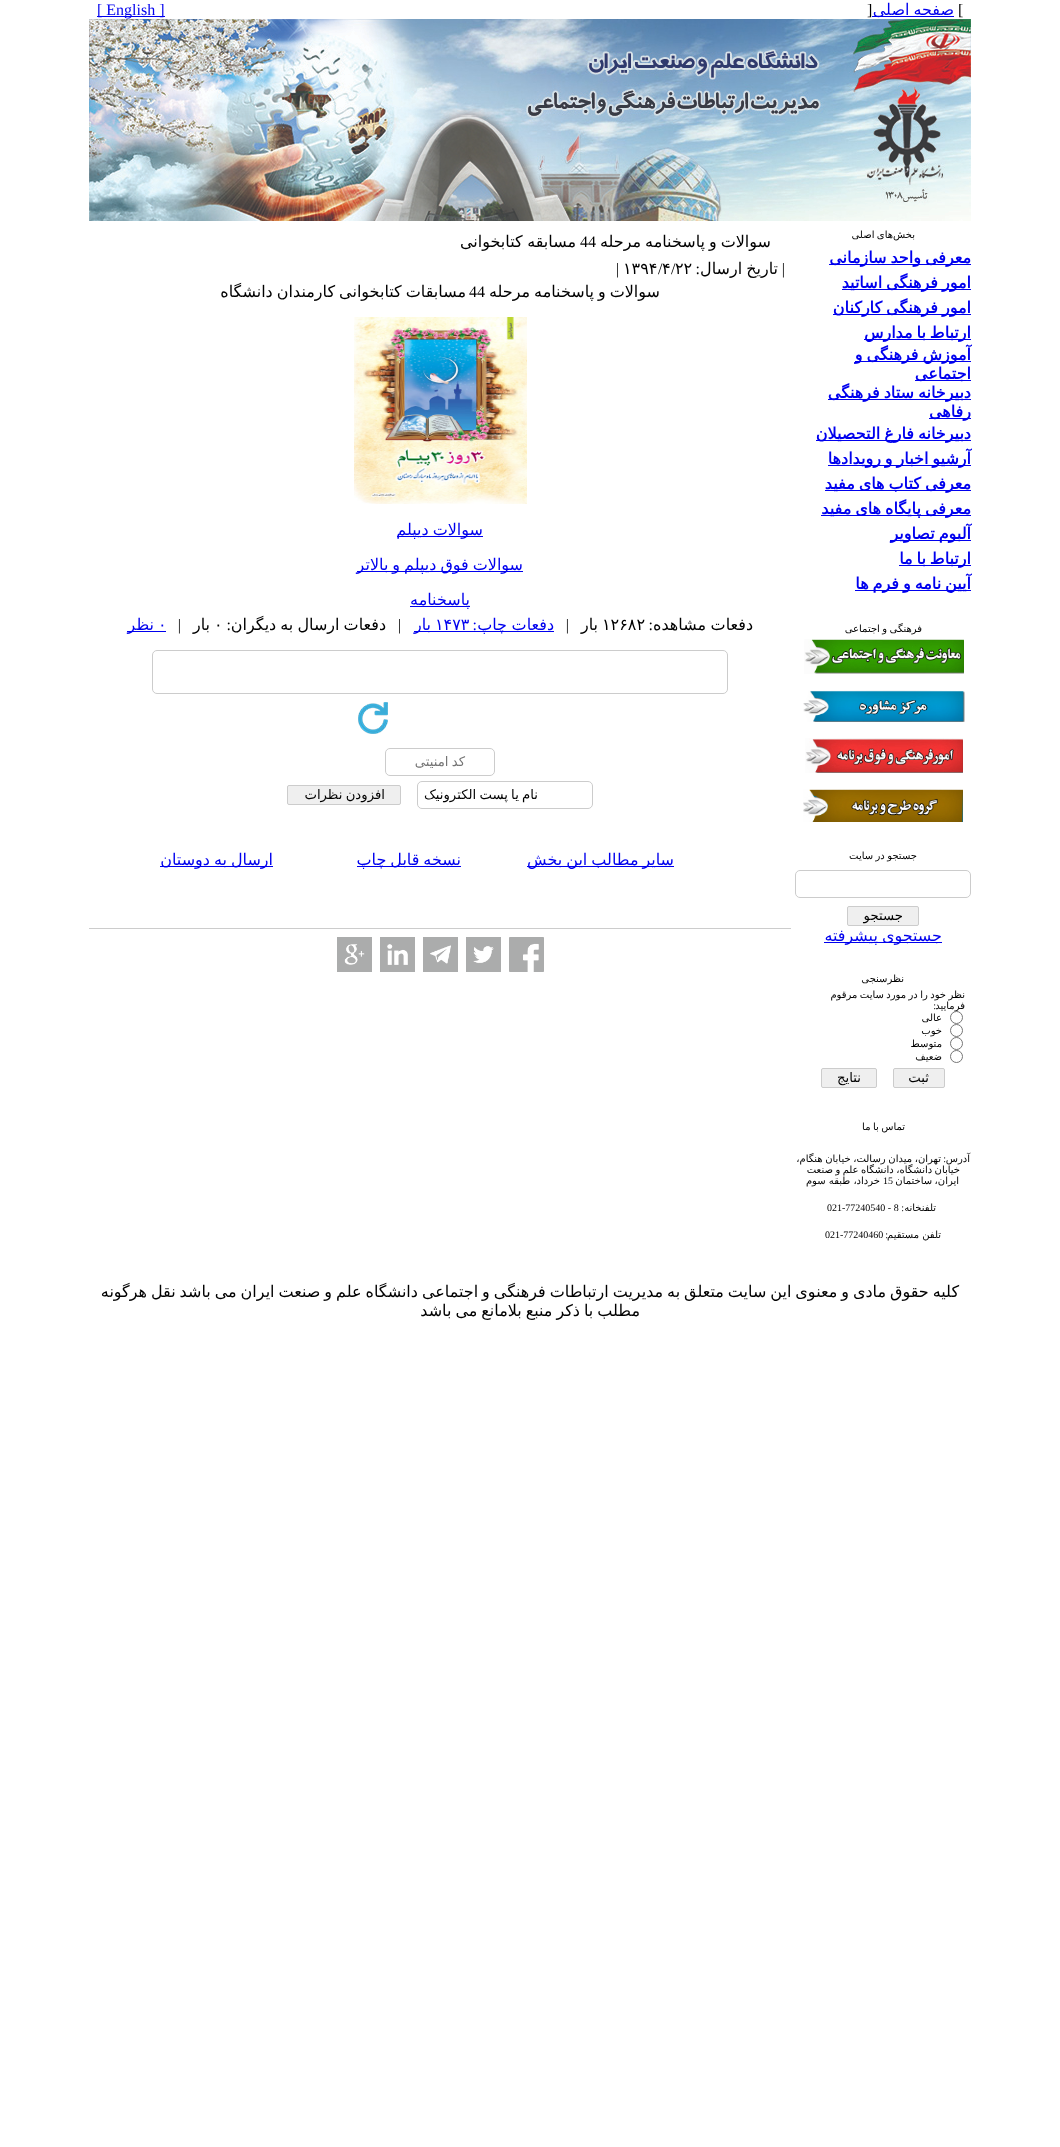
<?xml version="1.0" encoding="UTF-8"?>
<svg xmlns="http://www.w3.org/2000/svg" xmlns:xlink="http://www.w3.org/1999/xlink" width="1060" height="2147">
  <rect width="100%" height="100%" fill="#ffffff" />
  <rect x="872" y="16" width="82" height="1" fill="#0000ee" />
  <rect x="97" y="16" width="68" height="1" fill="#0000ee" />
  <image x="89" y="19" width="882" height="202" xlink:href="image1.png" />
  <rect x="829" y="264" width="142" height="1" fill="#0000ee" />
  <rect x="842" y="289" width="129" height="1" fill="#0000ee" />
  <rect x="833" y="314" width="138" height="1" fill="#0000ee" />
  <rect x="864" y="339" width="107" height="1" fill="#0000ee" />
  <rect x="855" y="361" width="116" height="1" fill="#0000ee" />
  <rect x="915" y="380" width="56" height="1" fill="#0000ee" />
  <rect x="828" y="399" width="143" height="1" fill="#0000ee" />
  <rect x="929" y="418" width="42" height="1" fill="#0000ee" />
  <rect x="816" y="440" width="155" height="1" fill="#0000ee" />
  <rect x="828" y="465" width="143" height="1" fill="#0000ee" />
  <rect x="825" y="490" width="146" height="1" fill="#0000ee" />
  <rect x="821" y="515" width="150" height="1" fill="#0000ee" />
  <rect x="890" y="540" width="81" height="1" fill="#0000ee" />
  <rect x="899" y="565" width="72" height="1" fill="#0000ee" />
  <rect x="855" y="590" width="116" height="1" fill="#0000ee" />
  <image x="804" y="639" width="160" height="35" xlink:href="image2.png" />
  <image x="803" y="690" width="162" height="32" xlink:href="image3.png" />
  <image x="805" y="738" width="158" height="35" xlink:href="image4.png" />
  <image x="803" y="789" width="160" height="33" xlink:href="image5.png" />
  <rect x="795.5" y="870.5" width="175" height="27" rx="4.5" fill="none" stroke="#cccccc" />
  <rect x="847.5" y="906.5" width="71" height="19" rx="1.5" fill="#efefef" stroke="#cccccc" />
  <rect x="824" y="942" width="118" height="1" fill="#0000ee" />
  <circle cx="956.5" cy="1030.5" r="6" fill="none" stroke="#767676" />
  <circle cx="956.5" cy="1043.5" r="6" fill="none" stroke="#767676" />
  <circle cx="956.5" cy="1056.5" r="6" fill="none" stroke="#767676" />
  <rect x="893.5" y="1068.5" width="51" height="19" rx="1.5" fill="#efefef" stroke="#cccccc" />
  <rect x="821.5" y="1068.5" width="55" height="19" rx="1.5" fill="#efefef" stroke="#cccccc" />
  <image x="354" y="317" width="173" height="187" xlink:href="image6.png" />
  <rect x="397" y="536" width="86" height="1" fill="#0000ee" />
  <rect x="357" y="571" width="166" height="1" fill="#0000ee" />
  <rect x="410" y="606" width="60" height="1" fill="#0000ee" />
  <rect x="414" y="631" width="140" height="1" fill="#0000ee" />
  <rect x="127" y="631" width="39" height="1" fill="#0000ee" />
  <rect x="152.5" y="650.5" width="575" height="43" rx="4.5" fill="none" stroke="#cccccc" />
  <image x="358" y="702" width="30" height="32" xlink:href="image7.png" />
  <rect x="385.5" y="748.5" width="109" height="27" rx="4.5" fill="none" stroke="#cccccc" />
  <rect x="417.5" y="781.5" width="175" height="27" rx="4.5" fill="none" stroke="#cccccc" />
  <rect x="287.5" y="785.5" width="113" height="19" rx="1.5" fill="#efefef" stroke="#cccccc" />
  <rect x="527" y="866" width="147" height="1" fill="#0000ee" />
  <rect x="357" y="866" width="104" height="1" fill="#0000ee" />
  <rect x="160" y="866" width="113" height="1" fill="#0000ee" />
  <rect x="89" y="928" width="702" height="1" fill="#cccccc" />
  <image x="509" y="937" width="35" height="35" xlink:href="image8.png" />
  <image x="466" y="937" width="35" height="35" xlink:href="image9.png" />
  <image x="423" y="937" width="35" height="35" xlink:href="image10.png" />
  <image x="380" y="937" width="35" height="35" xlink:href="image11.png" />
  <image x="337" y="937" width="35" height="35" xlink:href="image12.png" />
  <text x="958" y="15" style="font-family: Liberation Serif; font-size: 16px; fill: #000000">[</text>
  <text x="954" y="15" word-spacing="-1.1" style="font-family: DejaVu Sans; font-size: 16px; direction: rtl; fill: #0000ee">صفحه اصلی</text>
  <text x="867" y="15" style="font-family: Liberation Serif; font-size: 16px; fill: #000000">]</text>
  <text x="97" y="15" style="font-family: Liberation Serif; font-size: 16px; fill: #0000ee">[ English ]</text>
  <text x="915" y="238" style="font-family: DejaVu Sans; font-size: 10px; direction: rtl; fill: #000000">بخش</text>
  <text x="893" y="238" word-spacing="-0.75" style="font-family: DejaVu Sans; font-size: 10px; direction: rtl; fill: #000000">های اصلی</text>
  <text x="971" y="263" word-spacing="-1.1" style="font-family: DejaVu Sans; font-size: 16px; font-weight: bold; direction: rtl; fill: #0000ee">معرفی واحد سازمانی</text>
  <text x="971" y="288" word-spacing="-1.1" style="font-family: DejaVu Sans; font-size: 16px; font-weight: bold; direction: rtl; fill: #0000ee">امور فرهنگی اساتید</text>
  <text x="971" y="313" word-spacing="-1.1" style="font-family: DejaVu Sans; font-size: 16px; font-weight: bold; direction: rtl; fill: #0000ee">امور فرهنگی کارکنان</text>
  <text x="971" y="338" word-spacing="-1.1" style="font-family: DejaVu Sans; font-size: 16px; font-weight: bold; direction: rtl; fill: #0000ee">ارتباط با مدارس</text>
  <text x="971" y="360" word-spacing="-1.1" style="font-family: DejaVu Sans; font-size: 16px; font-weight: bold; direction: rtl; fill: #0000ee">آموزش فرهنگی و</text>
  <text x="971" y="379" style="font-family: DejaVu Sans; font-size: 16px; font-weight: bold; direction: rtl; fill: #0000ee">اجتماعی</text>
  <text x="971" y="398" word-spacing="-1.1" style="font-family: DejaVu Sans; font-size: 16px; font-weight: bold; direction: rtl; fill: #0000ee">دبیرخانه ستاد فرهنگی</text>
  <text x="971" y="417" style="font-family: DejaVu Sans; font-size: 16px; font-weight: bold; direction: rtl; fill: #0000ee">رفاهی</text>
  <text x="971" y="439" word-spacing="-1.1" style="font-family: DejaVu Sans; font-size: 16px; font-weight: bold; direction: rtl; fill: #0000ee">دبیرخانه فارغ التحصیلان</text>
  <text x="971" y="464" word-spacing="-1.1" style="font-family: DejaVu Sans; font-size: 16px; font-weight: bold; direction: rtl; fill: #0000ee">آرشیو اخبار و رویدادها</text>
  <text x="971" y="489" word-spacing="-1.1" style="font-family: DejaVu Sans; font-size: 16px; font-weight: bold; direction: rtl; fill: #0000ee">معرفی کتاب های مفید</text>
  <text x="971" y="514" word-spacing="-1.1" style="font-family: DejaVu Sans; font-size: 16px; font-weight: bold; direction: rtl; fill: #0000ee">معرفی پایگاه های مفید</text>
  <text x="971" y="539" word-spacing="-1.1" style="font-family: DejaVu Sans; font-size: 16px; font-weight: bold; direction: rtl; fill: #0000ee">آلبوم تصاویر</text>
  <text x="971" y="564" word-spacing="-1.1" style="font-family: DejaVu Sans; font-size: 16px; font-weight: bold; direction: rtl; fill: #0000ee">ارتباط با ما</text>
  <text x="971" y="589" word-spacing="-1.1" style="font-family: DejaVu Sans; font-size: 16px; font-weight: bold; direction: rtl; fill: #0000ee">آیین نامه و فرم ها</text>
  <text x="922" y="632" word-spacing="-0.75" style="font-family: DejaVu Sans; font-size: 10px; direction: rtl; fill: #000000">فرهنگی و اجتماعی</text>
  <text x="917" y="859" word-spacing="-0.75" style="font-family: DejaVu Sans; font-size: 10px; direction: rtl; fill: #000000">جستجو در سایت</text>
  <text x="903" y="920" style="font-family: DejaVu Sans; font-size: 13.25px; direction: rtl; fill: #000000">جستجو</text>
  <text x="942" y="941" word-spacing="-1.1" style="font-family: DejaVu Sans; font-size: 16px; direction: rtl; fill: #0000ee">جستجوی پیشرفته</text>
  <text x="904" y="982" style="font-family: DejaVu Sans; font-size: 10px; direction: rtl; fill: #000000">نظرسنجی</text>
  <text x="965" y="998" word-spacing="-0.75" style="font-family: DejaVu Sans; font-size: 10px; direction: rtl; fill: #000000">نظر خود را در مورد سایت مرقوم</text>
  <text x="965" y="1009" style="font-family: DejaVu Sans; font-size: 10px; direction: rtl; fill: #000000">فرمایید</text>
  <text x="936" y="1009" style="font-family: Liberation Serif; font-size: 10px; direction: rtl; fill: #000000">:</text>
  <circle cx="956.5" cy="1017.5" r="6" fill="#ffffff" stroke="#767676" />
  <text x="942" y="1021" style="font-family: DejaVu Sans; font-size: 10px; direction: rtl; fill: #000000">عالی</text>
  <text x="942" y="1034" style="font-family: DejaVu Sans; font-size: 10px; direction: rtl; fill: #000000">خوب</text>
  <text x="942" y="1047" style="font-family: DejaVu Sans; font-size: 10px; direction: rtl; fill: #000000">متوسط</text>
  <text x="942" y="1060" style="font-family: DejaVu Sans; font-size: 10px; direction: rtl; fill: #000000">ضعیف</text>
  <text x="929" y="1082" style="font-family: DejaVu Sans; font-size: 13.25px; direction: rtl; fill: #000000">ثبت</text>
  <text x="861" y="1082" style="font-family: DejaVu Sans; font-size: 13.25px; direction: rtl; fill: #000000">نتایج</text>
  <text x="905" y="1130" word-spacing="-0.75" style="font-family: DejaVu Sans; font-size: 10px; direction: rtl; fill: #000000">تماس با ما</text>
  <text x="970" y="1162" style="font-family: DejaVu Sans; font-size: 10px; direction: rtl; fill: #000000">آدرس</text>
  <text x="946" y="1162" style="font-family: Liberation Serif; font-size: 10px; direction: rtl; fill: #000000">:</text>
  <text x="941" y="1162" word-spacing="-0.5" style="font-family: DejaVu Sans; font-size: 10px; direction: rtl; fill: #000000">تهران، میدان رسالت، خیابان هنگام،</text>
  <text x="960" y="1173" word-spacing="-0.75" style="font-family: DejaVu Sans; font-size: 10px; direction: rtl; fill: #000000">خیابان دانشگاه، دانشگاه علم و صنعت</text>
  <text x="959" y="1184" word-spacing="-0.75" style="font-family: DejaVu Sans; font-size: 10px; direction: rtl; fill: #000000">ایران، ساختمان</text>
  <text x="883" y="1184" style="font-family: Liberation Serif; font-size: 10px; fill: #000000">15</text>
  <text x="880" y="1184" style="font-family: DejaVu Sans; font-size: 10px; direction: rtl; fill: #000000">خرداد، طبقه سوم</text>
  <text x="936" y="1211" style="font-family: DejaVu Sans; font-size: 10px; direction: rtl; fill: #000000">تلفنخانه</text>
  <text x="904" y="1211" style="font-family: Liberation Serif; font-size: 10px; direction: rtl; fill: #000000">:</text>
  <text x="827" y="1211" style="font-family: Liberation Serif; font-size: 10px; fill: #000000">021-77240540 - 8</text>
  <text x="941" y="1238" style="font-family: DejaVu Sans; font-size: 10px; direction: rtl; fill: #000000">تلفن مستقیم</text>
  <text x="888" y="1238" style="font-family: Liberation Serif; font-size: 10px; direction: rtl; fill: #000000">:</text>
  <text x="825" y="1238" style="font-family: Liberation Serif; font-size: 10px; fill: #000000">021-77240460</text>
  <text x="771" y="247" word-spacing="-1.1" style="font-family: DejaVu Sans; font-size: 16px; direction: rtl; fill: #000000">سوالات و پاسخنامه مرحله</text>
  <text x="580" y="247" style="font-family: Liberation Serif; font-size: 16px; fill: #000000">44</text>
  <text x="576" y="247" word-spacing="-0.5" style="font-family: DejaVu Sans; font-size: 16px; direction: rtl; fill: #000000">مسابقه کتابخوانی</text>
  <text x="785" y="274" style="font-family: Liberation Serif; font-size: 16px; direction: rtl; fill: #000000">|</text>
  <text x="778" y="274" word-spacing="-1" style="font-family: DejaVu Sans; font-size: 16px; direction: rtl; fill: #000000">تاریخ ارسال</text>
  <text x="700" y="274" style="font-family: Liberation Serif; font-size: 16px; direction: rtl; fill: #000000">:</text>
  <text x="671" y="274" style="font-family: Liberation Serif; font-size: 16px; fill: #000000">/</text>
  <text x="675" y="274" style="font-family: DejaVu Sans; font-size: 16px; fill: #000000">۲۲</text>
  <text x="658" y="274" style="font-family: Liberation Serif; font-size: 16px; fill: #000000">/</text>
  <text x="662" y="274" style="font-family: DejaVu Sans; font-size: 16px; fill: #000000">۴</text>
  <text x="623" y="274" style="font-family: DejaVu Sans; font-size: 16px; fill: #000000">۱۳۹۴</text>
  <text x="616" y="274" style="font-family: Liberation Serif; font-size: 16px; fill: #000000">|</text>
  <text x="660" y="297" word-spacing="-1.1" style="font-family: DejaVu Sans; font-size: 16px; direction: rtl; fill: #000000">سوالات و پاسخنامه مرحله</text>
  <text x="469" y="297" style="font-family: Liberation Serif; font-size: 16px; fill: #000000">44</text>
  <text x="466" y="297" word-spacing="-1" style="font-family: DejaVu Sans; font-size: 16px; direction: rtl; fill: #000000">مسابقات کتابخوانی کارمندان دانشگاه</text>
  <text x="483" y="535" word-spacing="-1.1" style="font-family: DejaVu Sans; font-size: 16px; direction: rtl; fill: #0000ee">سوالات دیپلم</text>
  <text x="523" y="570" word-spacing="-1.1" style="font-family: DejaVu Sans; font-size: 16px; direction: rtl; fill: #0000ee">سوالات فوق دیپلم و بالاتر</text>
  <text x="470" y="605" style="font-family: DejaVu Sans; font-size: 16px; direction: rtl; fill: #0000ee">پاسخنامه</text>
  <text x="753" y="630" word-spacing="-0.5" style="font-family: DejaVu Sans; font-size: 16px; direction: rtl; fill: #000000">دفعات مشاهده</text>
  <text x="653" y="630" style="font-family: Liberation Serif; font-size: 16px; direction: rtl; fill: #000000">:</text>
  <text x="602" y="630" style="font-family: DejaVu Sans; font-size: 16px; fill: #000000">۱۲۶۸۲</text>
  <text x="598" y="630" style="font-family: DejaVu Sans; font-size: 16px; direction: rtl; fill: #000000">بار</text>
  <text x="569" y="630" style="font-family: Liberation Serif; font-size: 16px; direction: rtl; fill: #000000">|</text>
  <text x="554" y="630" word-spacing="-0.5" style="font-family: DejaVu Sans; font-size: 16px; direction: rtl; fill: #0000ee">دفعات چاپ</text>
  <text x="477" y="630" style="font-family: Liberation Serif; font-size: 16px; direction: rtl; fill: #0000ee">:</text>
  <text x="435" y="630" style="font-family: DejaVu Sans; font-size: 16px; fill: #0000ee">۱۴۷۳</text>
  <text x="431" y="630" style="font-family: DejaVu Sans; font-size: 16px; direction: rtl; fill: #0000ee">بار</text>
  <text x="398" y="630" style="font-family: Liberation Serif; font-size: 16px; fill: #000000">|</text>
  <text x="386" y="630" word-spacing="-1" style="font-family: DejaVu Sans; font-size: 16px; direction: rtl; fill: #000000">دفعات ارسال به دیگران</text>
  <text x="231" y="630" style="font-family: Liberation Serif; font-size: 16px; direction: rtl; fill: #000000">:</text>
  <text x="214" y="630" style="font-family: DejaVu Sans; font-size: 16px; fill: #000000">۰</text>
  <text x="210" y="630" style="font-family: DejaVu Sans; font-size: 16px; direction: rtl; fill: #000000">بار</text>
  <text x="181" y="630" style="font-family: Liberation Serif; font-size: 16px; direction: rtl; fill: #000000">|</text>
  <text x="158" y="630" style="font-family: DejaVu Sans; font-size: 16px; fill: #0000ee">۰</text>
  <text x="154" y="630" style="font-family: DejaVu Sans; font-size: 16px; direction: rtl; fill: #0000ee">نظر</text>
  <text x="465" y="766" word-spacing="-1" style="font-family: DejaVu Sans; font-size: 13.25px; direction: rtl; fill: #757575">کد امنیتی</text>
  <text x="538" y="799" word-spacing="-1" style="font-family: DejaVu Sans; font-size: 13.25px; direction: rtl; fill: #000000">نام یا پست الکترونیک</text>
  <text x="385" y="799" word-spacing="-1" style="font-family: DejaVu Sans; font-size: 13.25px; direction: rtl; fill: #000000">افزودن نظرات</text>
  <text x="674" y="865" word-spacing="-1.1" style="font-family: DejaVu Sans; font-size: 16px; direction: rtl; fill: #0000ee">سایر مطالب این بخش</text>
  <text x="461" y="865" word-spacing="-1.1" style="font-family: DejaVu Sans; font-size: 16px; direction: rtl; fill: #0000ee">نسخه قابل چاپ</text>
  <text x="273" y="865" word-spacing="-1.1" style="font-family: DejaVu Sans; font-size: 16px; direction: rtl; fill: #0000ee">ارسال به دوستان</text>
  <text x="959" y="1297" word-spacing="-1.1" style="font-family: DejaVu Sans; font-size: 16px; direction: rtl; fill: #000000">کلیه حقوق مادی و معنوی این سایت متعلق به مدیریت ارتباطات فرهنگی و اجتماعی دانشگاه علم و صنعت ایران می باشد نقل هرگونه</text>
  <text x="640" y="1316" word-spacing="-1.1" style="font-family: DejaVu Sans; font-size: 16px; direction: rtl; fill: #000000">مطلب با ذکر منبع بلامانع می باشد</text>
</svg>
